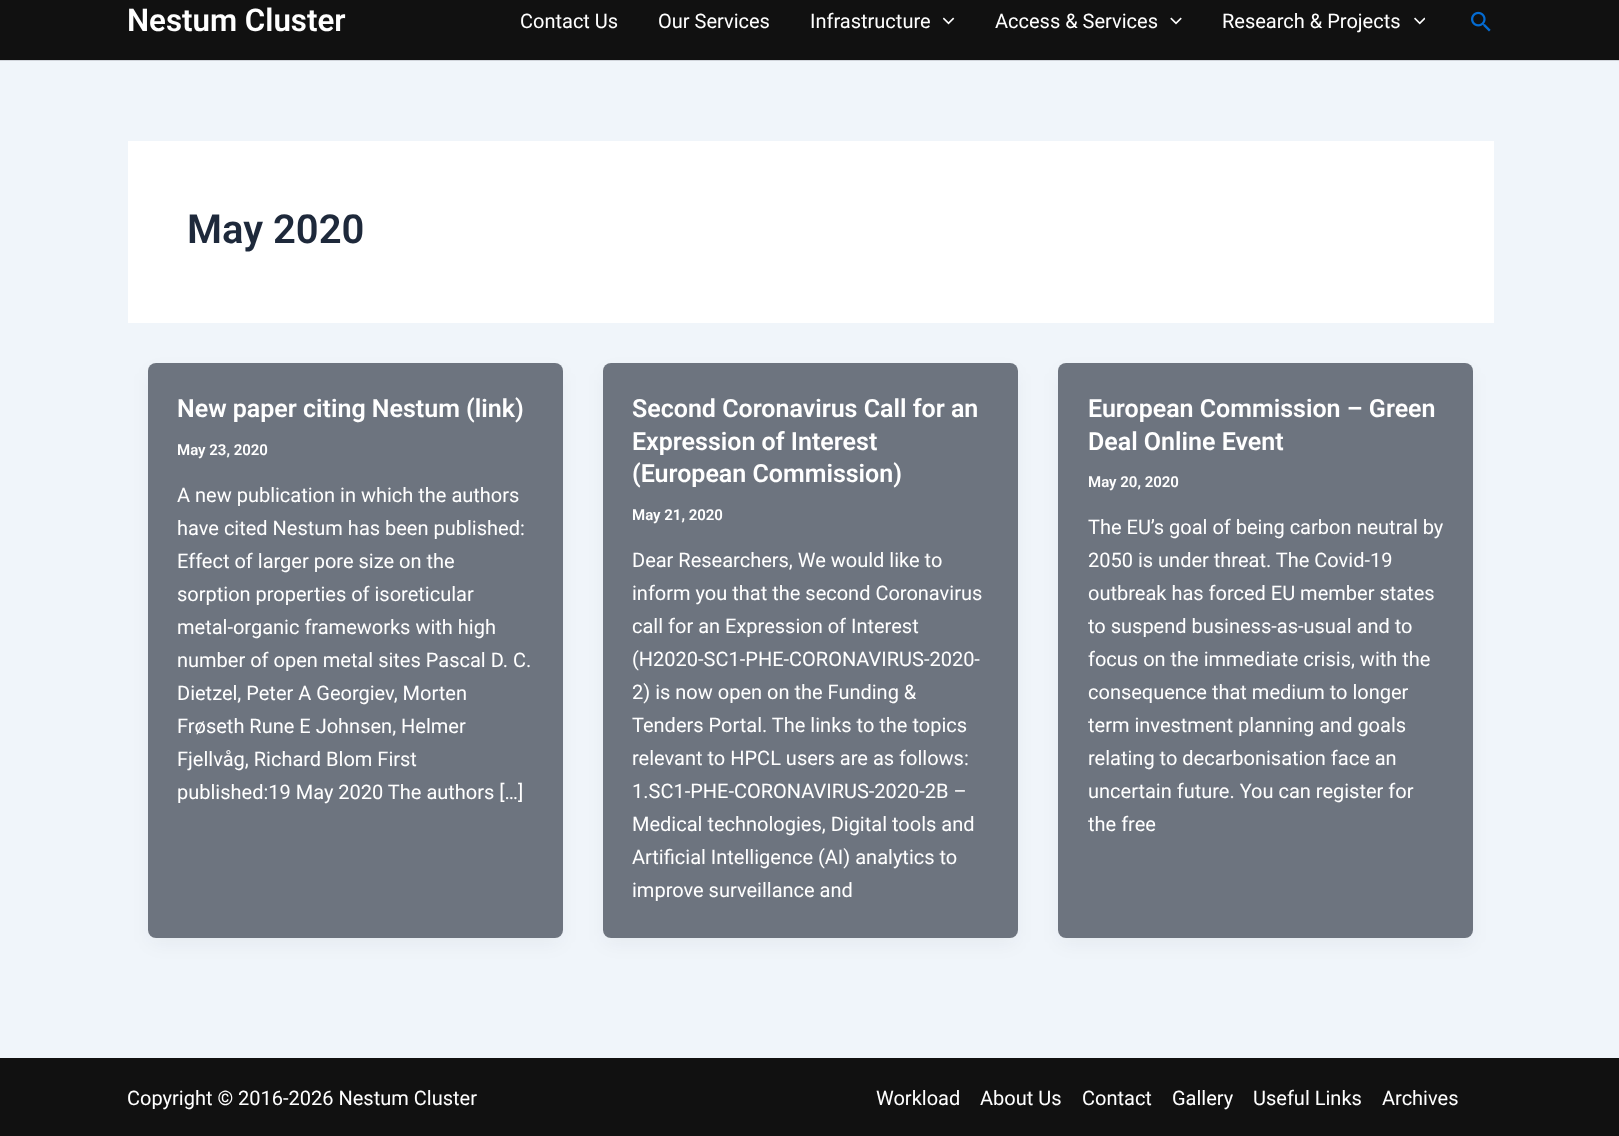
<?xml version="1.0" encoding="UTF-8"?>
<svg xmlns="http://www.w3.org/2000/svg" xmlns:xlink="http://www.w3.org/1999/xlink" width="1619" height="1136">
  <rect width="100%" height="100%" fill="#f0f5fa" />
  <rect width="1619" height="60" fill="#111111" />
  <rect y="60" width="1619" height="1" fill="#d1d5db" />
  <image x="943" y="17" width="12" height="8" xlink:href="image1.png" />
  <image x="1170" y="17" width="12" height="8" xlink:href="image2.png" />
  <image x="1414" y="17" width="11" height="8" xlink:href="image3.png" />
  <image x="1471" y="11" width="20" height="21" xlink:href="image4.png" />
  <rect x="128" y="141" width="1366" height="182" fill="#ffffff" />
  <rect x="150" y="373" width="410" height="570" rx="5" fill="#101828" fill-opacity="0.05" filter="blur(9.5px)" />
  <rect x="148" y="363" width="415" height="575" rx="8" fill="#ffffff" />
  <rect x="148" y="363" width="415" height="575" rx="8" fill="#1e293b" fill-opacity="0.65" />
  <rect x="605" y="373" width="410" height="570" rx="5" fill="#101828" fill-opacity="0.05" filter="blur(9.5px)" />
  <rect x="603" y="363" width="415" height="575" rx="8" fill="#ffffff" />
  <rect x="603" y="363" width="415" height="575" rx="8" fill="#1e293b" fill-opacity="0.65" />
  <rect x="1060" y="373" width="410" height="570" rx="5" fill="#101828" fill-opacity="0.05" filter="blur(9.5px)" />
  <rect x="1058" y="363" width="415" height="575" rx="8" fill="#ffffff" />
  <rect x="1058" y="363" width="415" height="575" rx="8" fill="#1e293b" fill-opacity="0.65" />
  <rect y="1058" width="1619" height="78" fill="#111111" />
  <text x="127" y="31" style="font-family: Roboto; font-size: 31.25px; font-weight: 600; fill: #ffffff">Nestum Cluster</text>
  <text x="520" y="28" style="font-family: Roboto; font-size: 20px; fill: #ffffff">Contact Us</text>
  <text x="658" y="28" style="font-family: Roboto; font-size: 20px; fill: #ffffff">Our Services</text>
  <text x="810" y="28" style="font-family: Roboto; font-size: 20px; fill: #ffffff">Infrastructure</text>
  <text x="995" y="28" style="font-family: Roboto; font-size: 20px; fill: #ffffff">Access &amp; Services</text>
  <text x="1222" y="28" style="font-family: Roboto; font-size: 20px; fill: #ffffff">Research &amp; Projects</text>
  <text x="187" y="243" style="font-family: Roboto; font-size: 40px; font-weight: 600; fill: #1e293b">May 2020</text>
  <text x="177" y="417" style="font-family: Roboto; font-size: 25px; font-weight: 600; fill: #ffffff">New paper citing Nestum (link)</text>
  <text x="177" y="455" style="font-family: Roboto; font-size: 15px; font-weight: 600; fill: #ffffff">May 23, 2020</text>
  <text x="177" y="502" style="font-family: Roboto; font-size: 20px; fill: #ffffff">A new publication in which the authors</text>
  <text x="177" y="535" style="font-family: Roboto; font-size: 20px; fill: #ffffff">have cited Nestum has been published:</text>
  <text x="177" y="568" style="font-family: Roboto; font-size: 20px; fill: #ffffff">Effect of larger pore size on the</text>
  <text x="177" y="601" style="font-family: Roboto; font-size: 20px; fill: #ffffff">sorption properties of isoreticular</text>
  <text x="177" y="634" style="font-family: Roboto; font-size: 20px; fill: #ffffff">metal‐organic frameworks with high</text>
  <text x="177" y="667" style="font-family: Roboto; font-size: 20px; fill: #ffffff">number of open metal sites Pascal D. C.</text>
  <text x="177" y="700" style="font-family: Roboto; font-size: 20px; fill: #ffffff">Dietzel, Peter A Georgiev, Morten</text>
  <text x="177" y="733" style="font-family: Roboto; font-size: 20px; fill: #ffffff">Frøseth Rune E Johnsen, Helmer</text>
  <text x="177" y="766" style="font-family: Roboto; font-size: 20px; fill: #ffffff">Fjellvåg, Richard Blom First</text>
  <text x="177" y="799" style="font-family: Roboto; font-size: 20px; fill: #ffffff">published:19 May 2020 The authors […]</text>
  <text x="632" y="417" style="font-family: Roboto; font-size: 25px; font-weight: 600; fill: #ffffff">Second Coronavirus Call for an</text>
  <text x="632" y="450" style="font-family: Roboto; font-size: 25px; font-weight: 600; fill: #ffffff">Expression of Interest</text>
  <text x="632" y="482" style="font-family: Roboto; font-size: 25px; font-weight: 600; fill: #ffffff">(European Commission)</text>
  <text x="632" y="520" style="font-family: Roboto; font-size: 15px; font-weight: 600; fill: #ffffff">May 21, 2020</text>
  <text x="632" y="567" style="font-family: Roboto; font-size: 20px; fill: #ffffff">Dear Researchers, We would like to</text>
  <text x="632" y="600" style="font-family: Roboto; font-size: 20px; fill: #ffffff">inform you that the second Coronavirus</text>
  <text x="632" y="633" style="font-family: Roboto; font-size: 20px; fill: #ffffff">call for an Expression of Interest</text>
  <text x="632" y="666" style="font-family: Roboto; font-size: 20px; fill: #ffffff">(H2020-SC1-PHE-CORONAVIRUS-2020-</text>
  <text x="632" y="699" style="font-family: Roboto; font-size: 20px; fill: #ffffff">2) is now open on the Funding &amp;</text>
  <text x="632" y="732" style="font-family: Roboto; font-size: 20px; fill: #ffffff">Tenders Portal. The links to the topics</text>
  <text x="632" y="765" style="font-family: Roboto; font-size: 20px; fill: #ffffff">relevant to HPCL users are as follows:</text>
  <text x="632" y="798" style="font-family: Roboto; font-size: 20px; fill: #ffffff">1.SC1-PHE-CORONAVIRUS-2020-2B –</text>
  <text x="632" y="831" style="font-family: Roboto; font-size: 20px; fill: #ffffff">Medical technologies, Digital tools and</text>
  <text x="632" y="864" style="font-family: Roboto; font-size: 20px; fill: #ffffff">Artificial Intelligence (AI) analytics to</text>
  <text x="632" y="897" style="font-family: Roboto; font-size: 20px; fill: #ffffff">improve surveillance and</text>
  <text x="1088" y="417" style="font-family: Roboto; font-size: 25px; font-weight: 600; fill: #ffffff">European Commission – Green</text>
  <text x="1088" y="450" style="font-family: Roboto; font-size: 25px; font-weight: 600; fill: #ffffff">Deal Online Event</text>
  <text x="1088" y="487" style="font-family: Roboto; font-size: 15px; font-weight: 600; fill: #ffffff">May 20, 2020</text>
  <text x="1088" y="534" style="font-family: Roboto; font-size: 20px; fill: #ffffff">The EU’s goal of being carbon neutral by</text>
  <text x="1088" y="567" style="font-family: Roboto; font-size: 20px; fill: #ffffff">2050 is under threat. The Covid-19</text>
  <text x="1088" y="600" style="font-family: Roboto; font-size: 20px; fill: #ffffff">outbreak has forced EU member states</text>
  <text x="1088" y="633" style="font-family: Roboto; font-size: 20px; fill: #ffffff">to suspend business-as-usual and to</text>
  <text x="1088" y="666" style="font-family: Roboto; font-size: 20px; fill: #ffffff">focus on the immediate crisis, with the</text>
  <text x="1088" y="699" style="font-family: Roboto; font-size: 20px; fill: #ffffff">consequence that medium to longer</text>
  <text x="1088" y="732" style="font-family: Roboto; font-size: 20px; fill: #ffffff">term investment planning and goals</text>
  <text x="1088" y="765" style="font-family: Roboto; font-size: 20px; fill: #ffffff">relating to decarbonisation face an</text>
  <text x="1088" y="798" style="font-family: Roboto; font-size: 20px; fill: #ffffff">uncertain future. You can register for</text>
  <text x="1088" y="831" style="font-family: Roboto; font-size: 20px; fill: #ffffff">the free</text>
  <text x="127" y="1105" style="font-family: Roboto; font-size: 20px; fill: #ffffff">Copyright © 2016-2026 Nestum Cluster</text>
  <text x="876" y="1105" style="font-family: Roboto; font-size: 20px; fill: #ffffff">Workload</text>
  <text x="980" y="1105" style="font-family: Roboto; font-size: 20px; fill: #ffffff">About Us</text>
  <text x="1082" y="1105" style="font-family: Roboto; font-size: 20px; fill: #ffffff">Contact</text>
  <text x="1172" y="1105" style="font-family: Roboto; font-size: 20px; fill: #ffffff">Gallery</text>
  <text x="1253" y="1105" style="font-family: Roboto; font-size: 20px; fill: #ffffff">Useful Links</text>
  <text x="1382" y="1105" style="font-family: Roboto; font-size: 20px; fill: #ffffff">Archives</text>
</svg>
